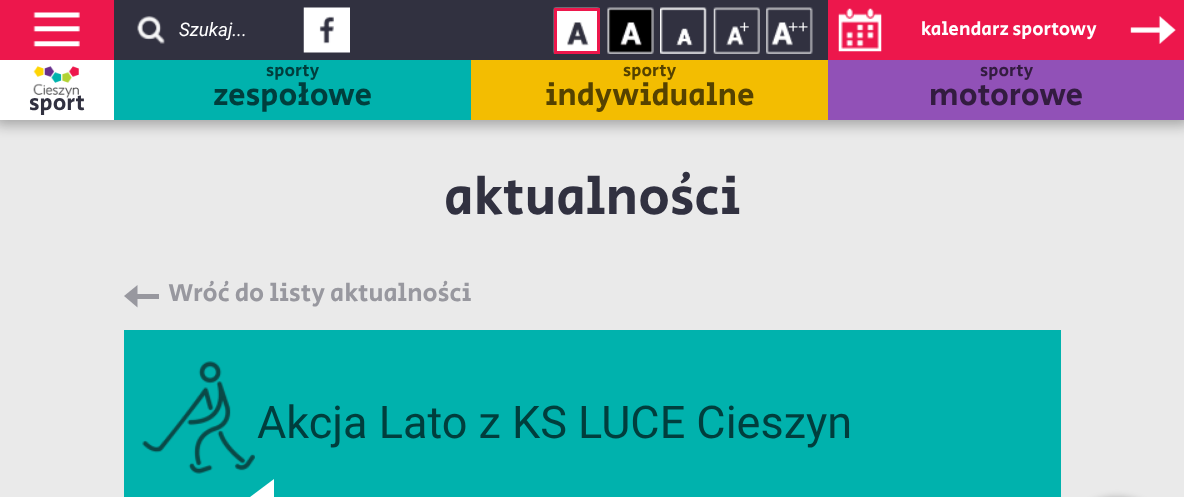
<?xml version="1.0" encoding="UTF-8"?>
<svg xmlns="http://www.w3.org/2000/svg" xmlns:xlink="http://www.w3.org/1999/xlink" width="1184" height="497">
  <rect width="100%" height="100%" fill="#eaeaea" />
  <rect x="-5" y="-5" width="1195" height="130" fill="#000000" fill-opacity="0.3" filter="blur(7px)" />
  <rect width="1184" height="60" fill="#ed174c" />
  <image x="33" y="12" width="47" height="35" xlink:href="image1.png" />
  <rect y="60" width="114" height="60" fill="#ffffff" />
  <image x="33" y="66" width="46" height="32" xlink:href="image2.png" />
  <rect x="114" width="714" height="60" fill="#313140" />
  <image x="137" y="16" width="28" height="28" xlink:href="image3.png" />
  <image x="303" y="7" width="47" height="46" xlink:href="image4.png" />
  <image x="553" y="7" width="47" height="47" xlink:href="image5.png" />
  <rect x="555.5" y="9.5" width="43" height="43" fill="none" stroke="#ed174c" stroke-width="3" />
  <image x="607" y="7" width="47" height="47" xlink:href="image6.png" />
  <image x="660" y="7" width="47" height="47" xlink:href="image7.png" />
  <image x="713" y="7" width="47" height="47" xlink:href="image8.png" />
  <image x="766" y="7" width="47" height="47" xlink:href="image9.png" />
  <image x="838" y="8" width="44" height="44" xlink:href="image10.png" />
  <image x="1130" y="16" width="46" height="28" xlink:href="image11.png" />
  <rect x="114" y="60" width="357" height="60" fill="#00b2ad" />
  <rect x="471" y="60" width="357" height="60" fill="#f3bd01" />
  <rect x="828" y="60" width="356" height="60" fill="#9151b7" />
  <path d="M 137.5 285 v 22.5 l -13.5 -11.5 z" fill="#98989f" />
  <rect x="136" y="294" width="23" height="5" fill="#98989f" />
  <rect x="124" y="330" width="937" height="167" fill="#00b2ad" />
  <image x="142" y="361" width="113" height="113" xlink:href="image12.png" />
  <path d="M 274 479 v 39 h -52 z" fill="#ffffff" />
  <rect x="1078" y="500" width="78" height="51" rx="39" fill="#000000" fill-opacity="0.45" filter="blur(5px)" />
  <text x="29" y="110" style="font-family: Secular One; font-size: 22.5px; fill: #313140">sport</text>
  <text x="179" y="36" style="font-family: Roboto; font-size: 18.75px; font-style: italic; fill: #ffffff">Szukaj...</text>
  <text x="921" y="35" style="font-family: Secular One; font-size: 18.75px; fill: #ffffff">kalendarz sportowy</text>
  <text x="266" y="76" style="font-family: Secular One; font-size: 17.5px; fill: #003e3d">sporty</text>
  <text x="213" y="105" style="font-family: Secular One; font-size: 31.25px; fill: #003e3d">zespołowe</text>
  <text x="623" y="76" style="font-family: Secular One; font-size: 17.5px; fill: #554200">sporty</text>
  <text x="545" y="105" style="font-family: Secular One; font-size: 31.25px; fill: #554200">indywidualne</text>
  <text x="980" y="76" style="font-family: Secular One; font-size: 17.5px; fill: #331c40">sporty</text>
  <text x="929" y="105" style="font-family: Secular One; font-size: 31.25px; fill: #331c40">motorowe</text>
  <text x="444" y="214" style="font-family: Secular One; font-size: 52.5px; fill: #313140">aktualności</text>
  <text x="168" y="301" style="font-family: Secular One; font-size: 25px; fill: #98989f">Wróć do listy aktualności</text>
  <text x="257" y="438" style="font-family: Roboto; font-size: 45px; fill: #003e3d">Akcja Lato z KS LUCE Cieszyn</text>
</svg>
